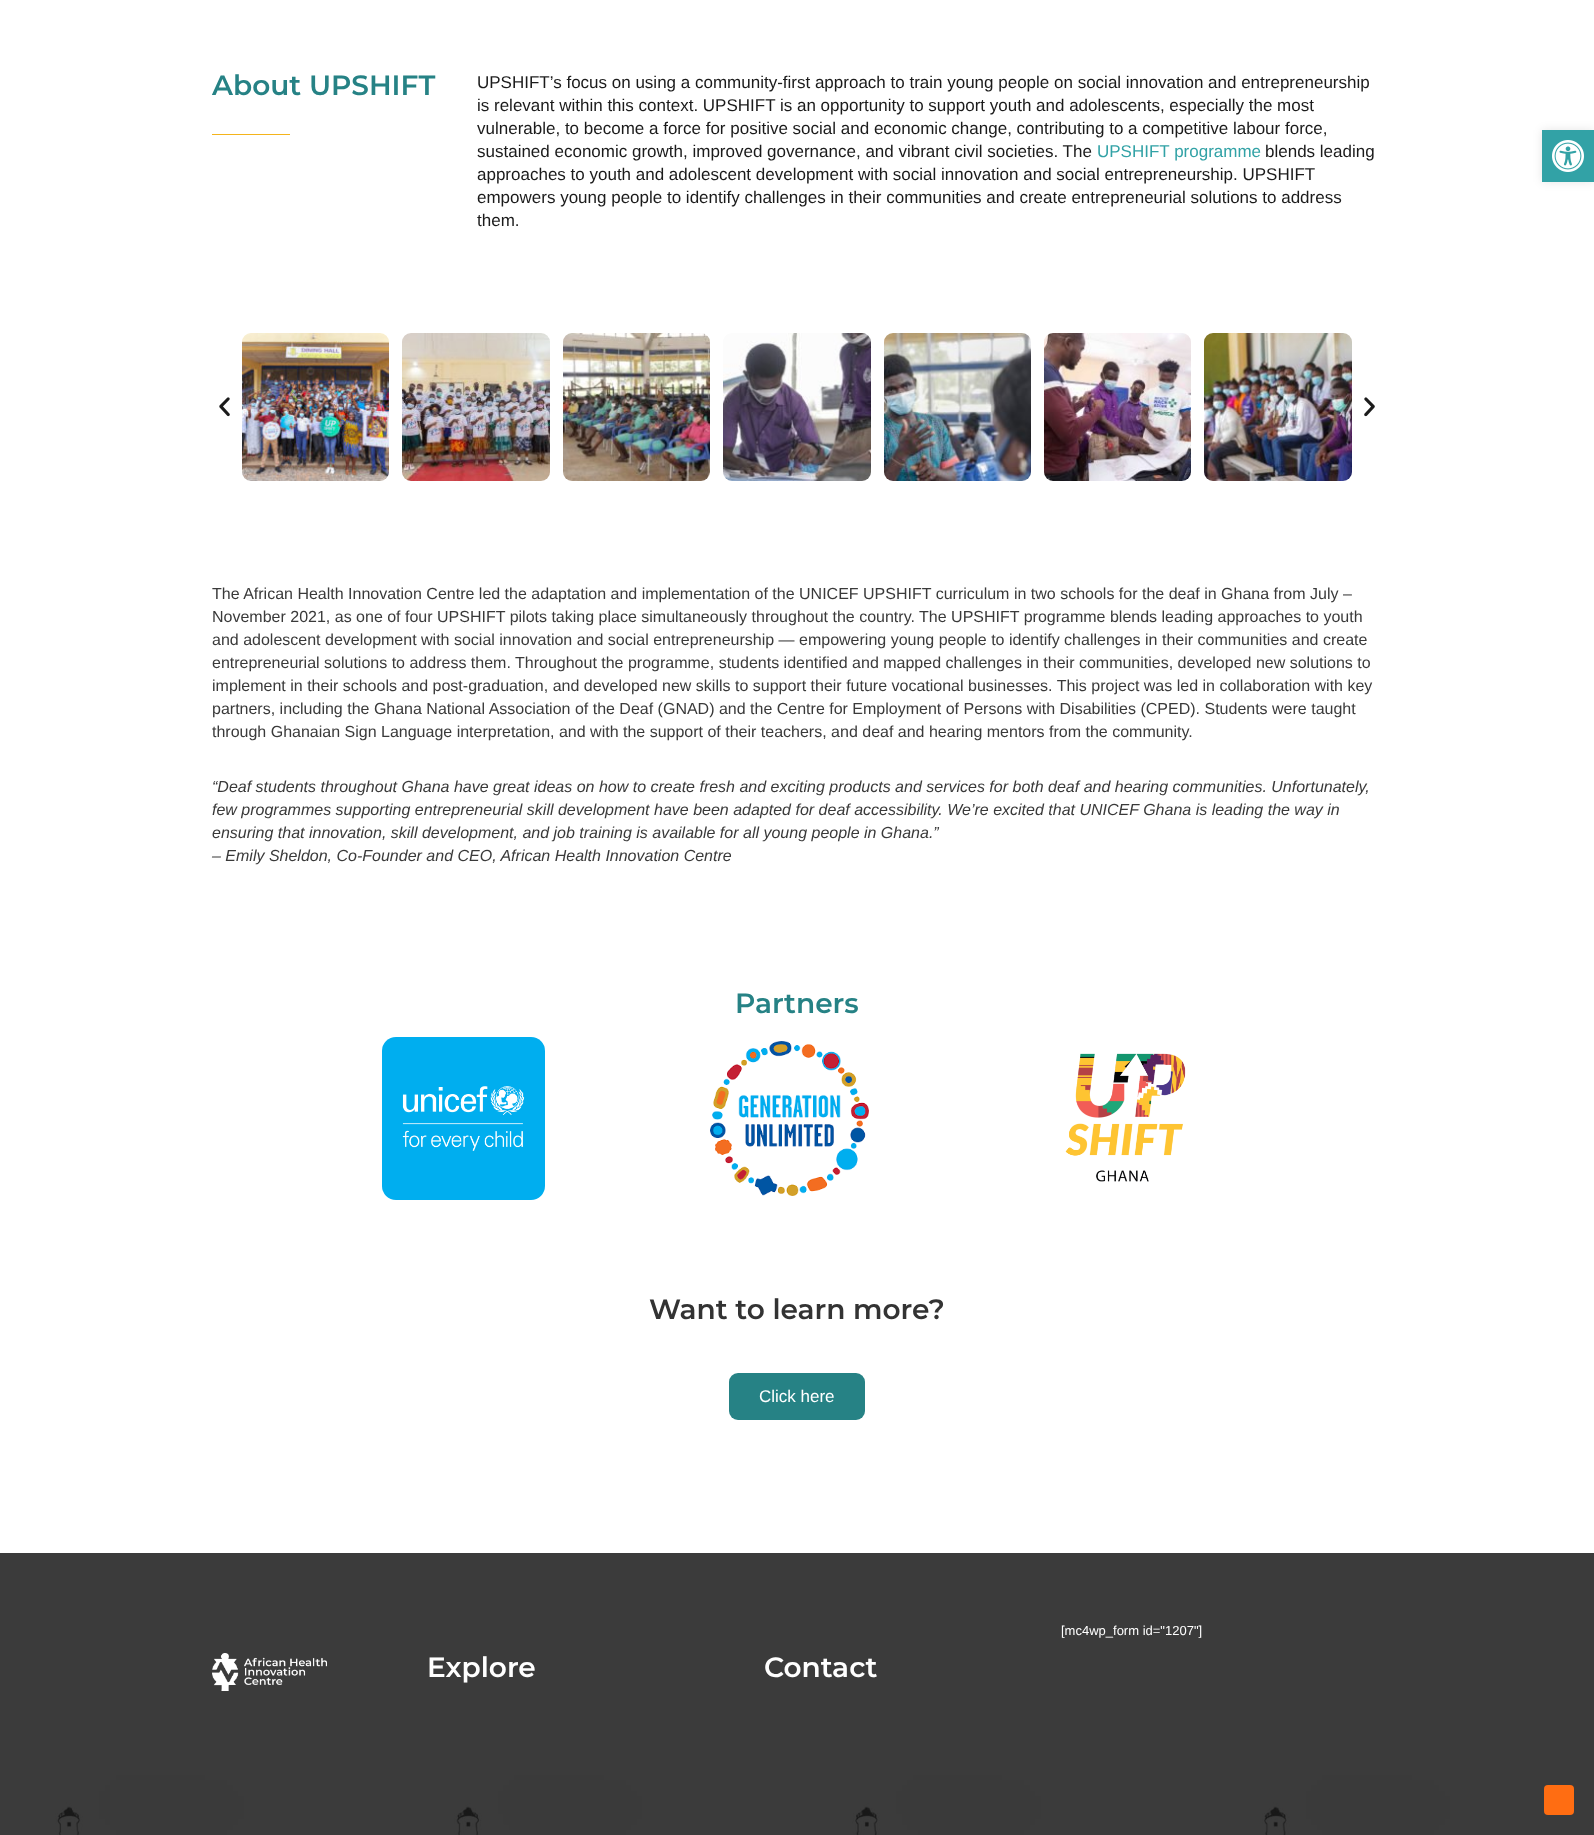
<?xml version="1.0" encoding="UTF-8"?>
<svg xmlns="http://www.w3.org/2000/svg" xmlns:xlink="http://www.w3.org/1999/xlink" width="1594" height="1835">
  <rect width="100%" height="100%" fill="#ffffff" />
  <rect y="1553" width="1594" height="282" fill="#3b3b3b" />
  <rect x="212" y="134" width="78" height="1" fill="#f4b41c" />
  <image x="219" y="397" width="11" height="20" xlink:href="image1.png" />
  <image x="242" y="333" width="147" height="148" xlink:href="image2.png" />
  <image x="402" y="333" width="148" height="148" xlink:href="image3.png" />
  <image x="563" y="333" width="147" height="148" xlink:href="image4.png" />
  <image x="723" y="333" width="148" height="148" xlink:href="image5.png" />
  <image x="884" y="333" width="147" height="148" xlink:href="image6.png" />
  <image x="1044" y="333" width="147" height="148" xlink:href="image7.png" />
  <image x="1204" y="333" width="148" height="148" xlink:href="image8.png" />
  <image x="1364" y="397" width="11" height="20" xlink:href="image9.png" />
  <image x="382" y="1037" width="163" height="163" xlink:href="image10.png" />
  <image x="710" y="1041" width="159" height="155" xlink:href="image11.png" />
  <image x="1065" y="1053" width="121" height="129" xlink:href="image12.png" />
  <rect x="729" y="1373" width="136" height="47" rx="9" fill="#268285" />
  <image x="55" y="1775" width="1395" height="60" xlink:href="image13.png" />
  <image x="212" y="1653" width="115" height="38" xlink:href="image14.png" />
  <rect x="1542" y="130" width="52" height="52" fill="#000000" fill-opacity="0.1" filter="blur(5px)" />
  <rect x="1542" y="130" width="52" height="52" fill="#32a2a6" />
  <image x="1552" y="140" width="32" height="32" xlink:href="image15.png" />
  <rect x="1544" y="1785" width="30" height="30" rx="4" fill="#ff6d12" />
  <text x="212" y="95" style="font-family: Montserrat; font-size: 28px; font-weight: 600; fill: #268285">About UPSHIFT</text>
  <text x="477" y="88" style="font-family: Liberation Sans; font-size: 17px; fill: #1b1b1b">UPSHIFT’s focus on using a community-first approach to train young people on social innovation and entrepreneurship</text>
  <text x="477" y="111" style="font-family: Liberation Sans; font-size: 17px; fill: #1b1b1b">is relevant within this context. UPSHIFT is an opportunity to support youth and adolescents, especially the most</text>
  <text x="477" y="134" style="font-family: Liberation Sans; font-size: 17px; fill: #1b1b1b">vulnerable, to become a force for positive social and economic change, contributing to a competitive labour force,</text>
  <text x="477" y="157" style="font-family: Liberation Sans; font-size: 17px; fill: #1b1b1b">sustained economic growth, improved governance, and vibrant civil societies. The</text>
  <text x="1097" y="157" style="font-family: Liberation Sans; font-size: 17px; fill: #32a2a6">UPSHIFT programme</text>
  <text x="1265" y="157" style="font-family: Liberation Sans; font-size: 17px; fill: #1b1b1b">blends leading</text>
  <text x="477" y="180" style="font-family: Liberation Sans; font-size: 17px; fill: #1b1b1b">approaches to youth and adolescent development with social innovation and social entrepreneurship. UPSHIFT</text>
  <text x="477" y="203" style="font-family: Liberation Sans; font-size: 17px; fill: #1b1b1b">empowers young people to identify challenges in their communities and create entrepreneurial solutions to address</text>
  <text x="477" y="226" style="font-family: Liberation Sans; font-size: 17px; fill: #1b1b1b">them.</text>
  <text x="212" y="599" style="font-family: Liberation Sans; font-size: 16px; fill: #3a3a3a">The African Health Innovation Centre led the adaptation and implementation of the UNICEF UPSHIFT curriculum in two schools for the deaf in Ghana from July –</text>
  <text x="212" y="622" style="font-family: Liberation Sans; font-size: 16px; fill: #3a3a3a">November 2021, as one of four UPSHIFT pilots taking place simultaneously throughout the country. The UPSHIFT programme blends leading approaches to youth</text>
  <text x="212" y="645" style="font-family: Liberation Sans; font-size: 16px; fill: #3a3a3a">and adolescent development with social innovation and social entrepreneurship — empowering young people to identify challenges in their communities and create</text>
  <text x="212" y="668" style="font-family: Liberation Sans; font-size: 16px; fill: #3a3a3a">entrepreneurial solutions to address them. Throughout the programme, students identified and mapped challenges in their communities, developed new solutions to</text>
  <text x="212" y="691" style="font-family: Liberation Sans; font-size: 16px; fill: #3a3a3a">implement in their schools and post-graduation, and developed new skills to support their future vocational businesses. This project was led in collaboration with key</text>
  <text x="212" y="714" style="font-family: Liberation Sans; font-size: 16px; fill: #3a3a3a">partners, including the Ghana National Association of the Deaf (GNAD) and the Centre for Employment of Persons with Disabilities (CPED). Students were taught</text>
  <text x="212" y="737" style="font-family: Liberation Sans; font-size: 16px; fill: #3a3a3a">through Ghanaian Sign Language interpretation, and with the support of their teachers, and deaf and hearing mentors from the community.</text>
  <text x="212" y="792" style="font-family: Liberation Sans; font-size: 16px; font-style: italic; fill: #3a3a3a">“Deaf students throughout Ghana have great ideas on how to create fresh and exciting products and services for both deaf and hearing communities. Unfortunately,</text>
  <text x="212" y="815" style="font-family: Liberation Sans; font-size: 16px; font-style: italic; fill: #3a3a3a">few programmes supporting entrepreneurial skill development have been adapted for deaf accessibility. We’re excited that UNICEF Ghana is leading the way in</text>
  <text x="212" y="838" style="font-family: Liberation Sans; font-size: 16px; font-style: italic; fill: #3a3a3a">ensuring that innovation, skill development, and job training is available for all young people in Ghana.”</text>
  <text x="212" y="861" style="font-family: Liberation Sans; font-size: 16px; font-style: italic; fill: #3a3a3a">– Emily Sheldon, Co-Founder and CEO, African Health Innovation Centre</text>
  <text x="735" y="1013" style="font-family: Montserrat; font-size: 28px; font-weight: 600; fill: #268285">Partners</text>
  <text x="649" y="1319" style="font-family: Montserrat; font-size: 28px; font-weight: 600; fill: #333333">Want to learn more?</text>
  <text x="759" y="1402" style="font-family: Liberation Sans; font-size: 17px; fill: #ffffff">Click here</text>
  <text x="1061" y="1635" style="font-family: Liberation Sans; font-size: 13px; fill: #ffffff">[mc4wp_form id="1207"]</text>
  <text x="427" y="1677" style="font-family: Montserrat; font-size: 28px; font-weight: 600; fill: #ffffff">Explore</text>
  <text x="764" y="1677" style="font-family: Montserrat; font-size: 28px; font-weight: 600; fill: #ffffff">Contact</text>
</svg>
